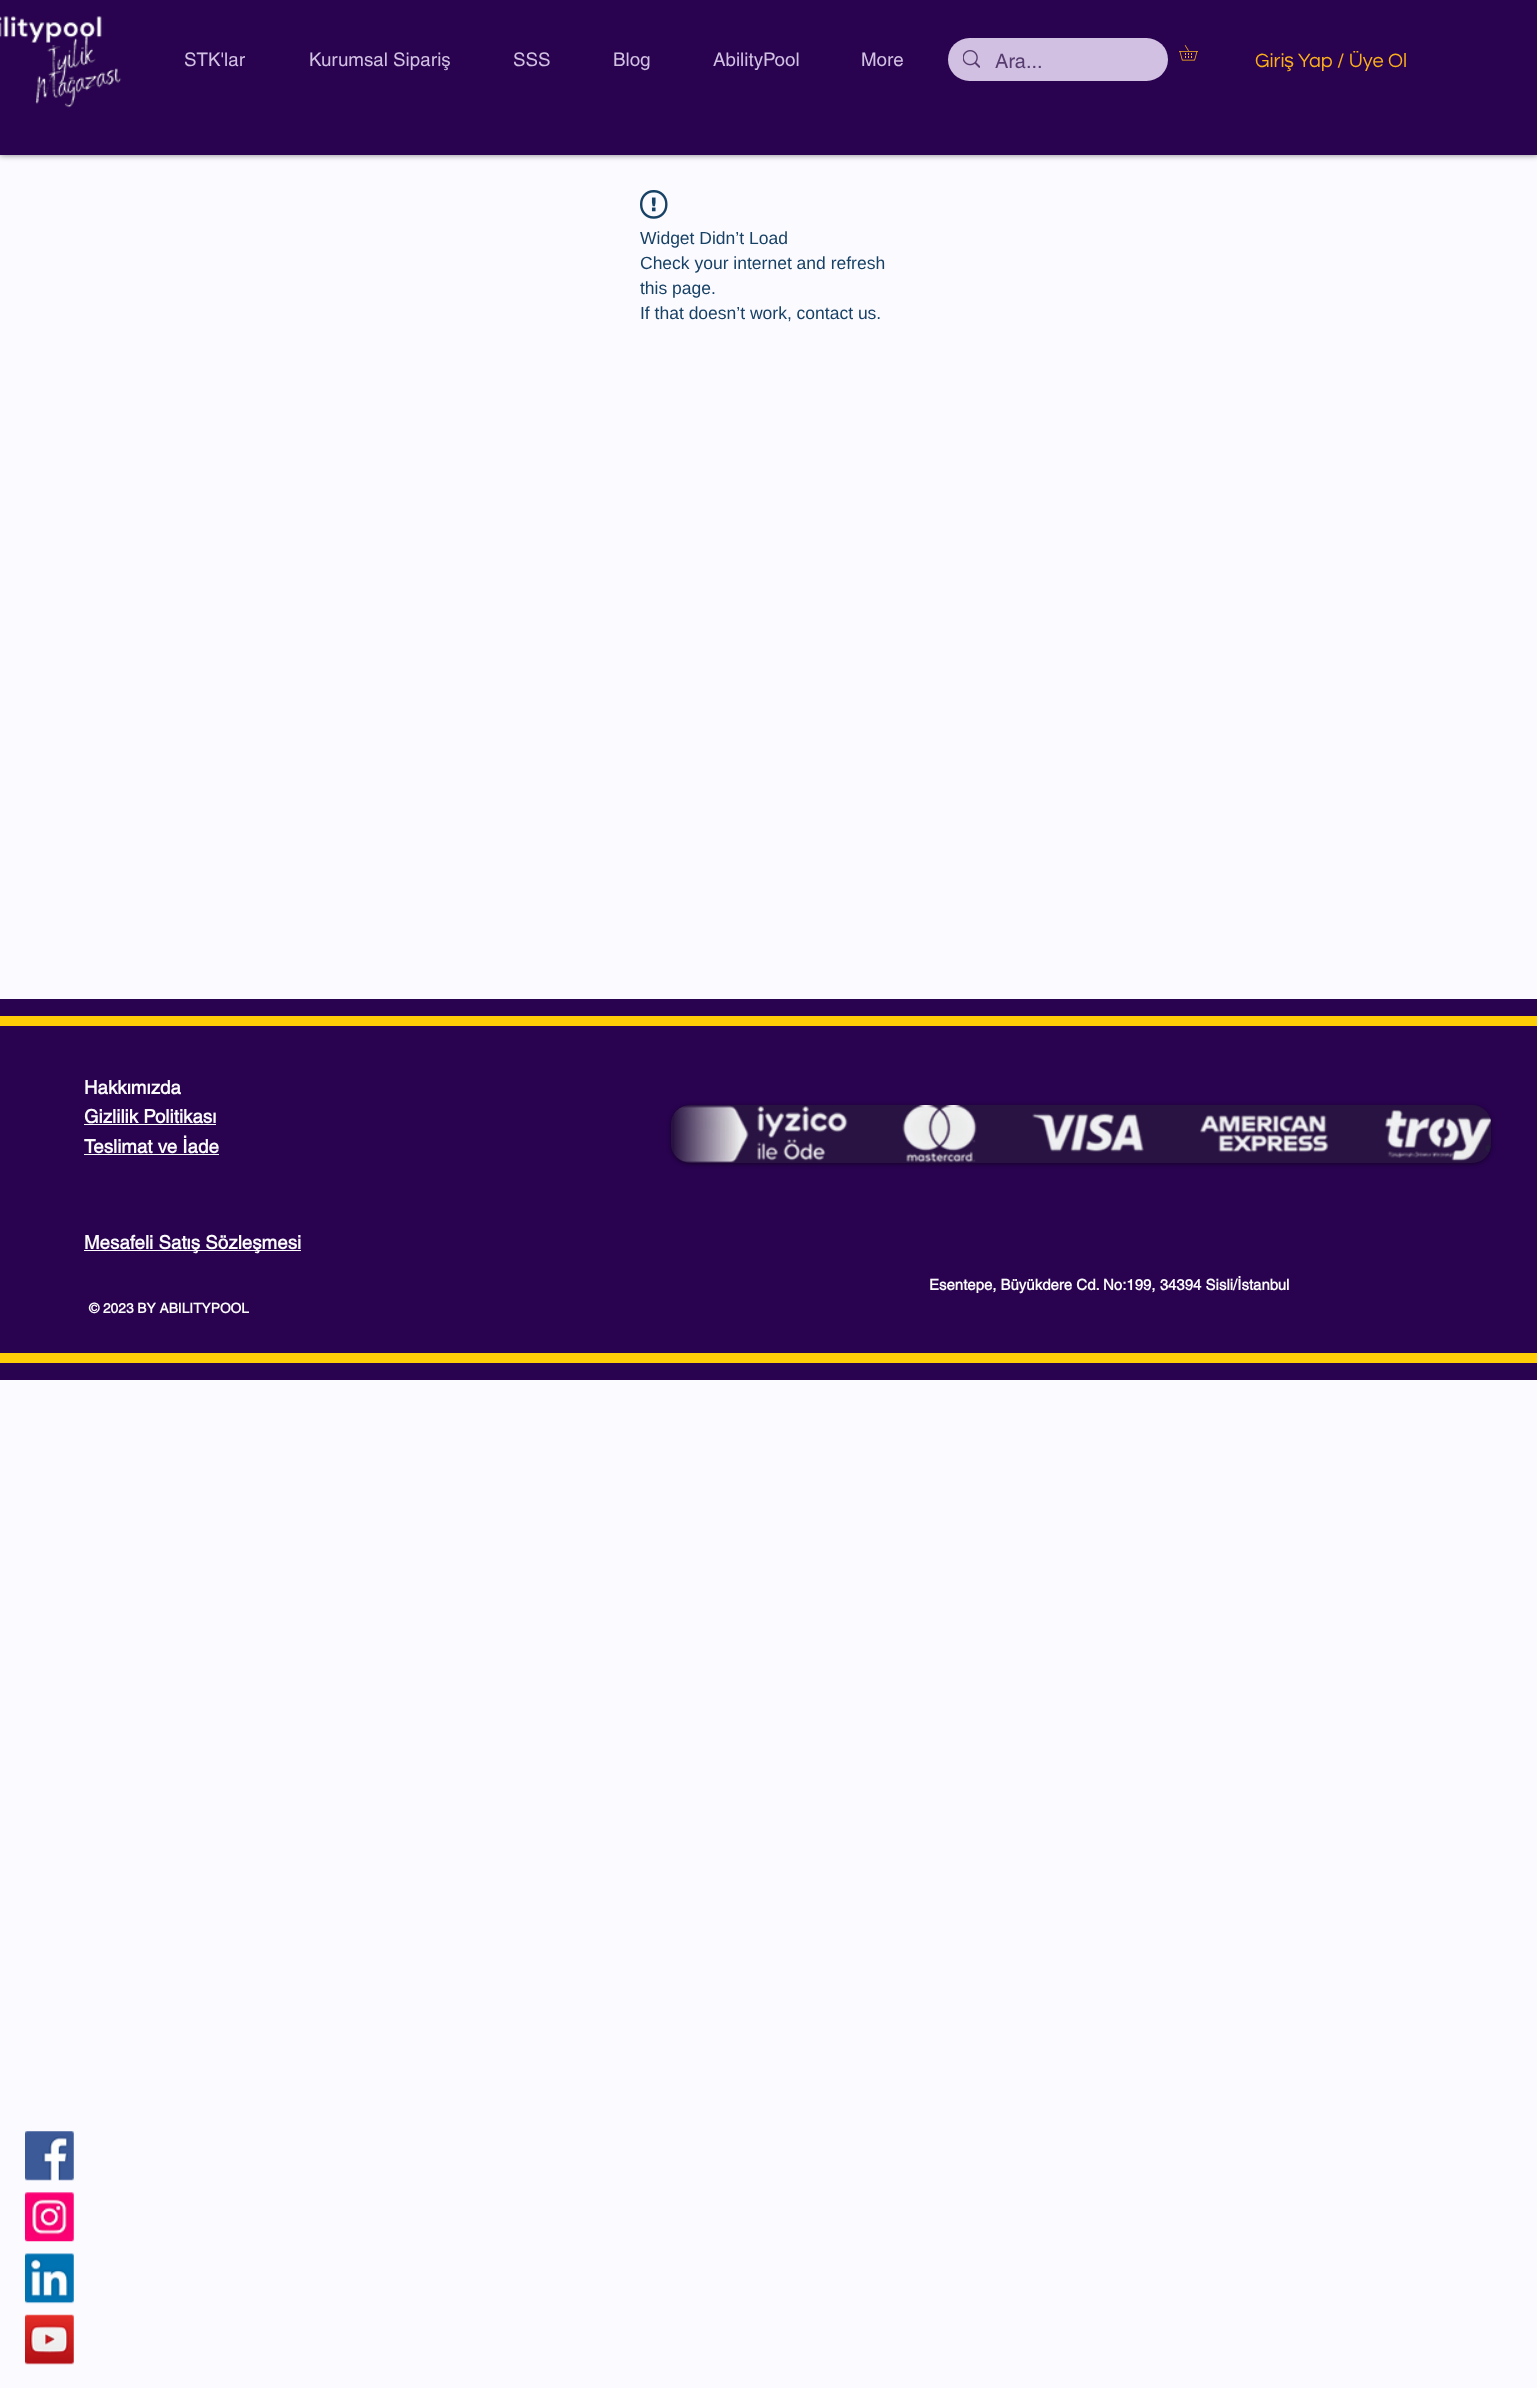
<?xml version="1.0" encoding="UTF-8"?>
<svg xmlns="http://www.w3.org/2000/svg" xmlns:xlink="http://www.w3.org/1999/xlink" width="1537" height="2388">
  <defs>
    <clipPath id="clip1"><path d="M 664 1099 h 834 v 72 h -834 z m 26 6 h 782 c 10.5 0 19 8.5 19 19 v 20 c 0 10.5 -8.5 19 -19 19 h -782 c -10.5 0 -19 -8.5 -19 -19 v -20 c 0 -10.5 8.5 -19 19 -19 z" clip-rule="evenodd" /></clipPath>
  </defs>
  <rect width="100%" height="100%" fill="#fbfaff" />
  <rect width="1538" height="155" fill="#000000" fill-opacity="0.5" filter="blur(3px)" />
  <rect width="1537" height="155" fill="#290350" />
  <image x="0" y="16" width="122" height="92" xlink:href="image1.png" />
  <rect x="948" y="38" width="220" height="43" rx="21.5" fill="#d1c0e2" />
  <image x="963" y="50" width="17" height="18" xlink:href="image2.png" />
  <image x="1179" y="45" width="19" height="16" xlink:href="image3.png" />
  <image x="640" y="190" width="28" height="29" xlink:href="image4.png" />
  <rect y="999" width="1537" height="381" fill="#290350" />
  <rect y="1016" width="1537" height="10" fill="#ffcc08" />
  <rect y="1353" width="1537" height="10" fill="#ffcc08" />
  <rect x="84" y="1124" width="132" height="1" fill="#ffffff" />
  <g clip-path="url(#clip1)">
    <rect x="671" y="1106" width="820" height="58" rx="19" fill="#000000" fill-opacity="0.5" filter="blur(2px)" />
  </g>
  <rect x="671" y="1105" width="820" height="58" rx="19" fill="#2b1f38" fill-opacity="0.59" />
  <image x="674" y="1105" width="817" height="58" xlink:href="image5.png" />
  <rect x="84" y="1154" width="135" height="1" fill="#fafafa" />
  <rect x="84" y="1250" width="217" height="1" fill="#ffffff" />
  <image x="25" y="2131" width="49" height="50" xlink:href="image6.png" />
  <image x="25" y="2192" width="49" height="50" xlink:href="image7.png" />
  <image x="25" y="2253" width="49" height="51" xlink:href="image8.png" />
  <image x="25" y="2314" width="49" height="51" xlink:href="image9.png" />
  <text x="184" y="66" style="font-family: helvetica; font-size: 18.75px; fill: #d1c0e2">STK'lar</text>
  <text x="309" y="66" style="font-family: helvetica; font-size: 18.75px; fill: #d1c0e2">Kurumsal Sipariş</text>
  <text x="513" y="66" style="font-family: helvetica; font-size: 18.75px; fill: #d1c0e2">SSS</text>
  <text x="613" y="66" style="font-family: helvetica; font-size: 18.75px; fill: #d1c0e2">Blog</text>
  <text x="713" y="66" style="font-family: helvetica; font-size: 18.75px; fill: #d1c0e2">AbilityPool</text>
  <text x="861" y="66" style="font-family: helvetica; font-size: 18.75px; fill: #d1c0e2">More</text>
  <text x="995" y="68" style="font-family: helvetica; font-size: 20px; fill: #573d6f">Ara...</text>
  <text x="1255" y="67" style="font-family: Questrial; font-size: 20px; fill: #fbaf1c">Giri</text>
  <text x="1284" y="67" style="font-family: Liberation Sans; font-size: 20px; fill: #fbaf1c">ş</text>
  <text x="1298" y="67" style="font-family: Questrial; font-size: 20px; fill: #fbaf1c">Yap / Üye Ol</text>
  <text x="640" y="244" style="font-family: Liberation Sans; font-size: 17.5px; fill: #174165">Widget Didn’t Load</text>
  <text x="640" y="269" style="font-family: Liberation Sans; font-size: 17.5px; fill: #174165">Check your internet and refresh</text>
  <text x="640" y="294" style="font-family: Liberation Sans; font-size: 17.5px; fill: #174165">this page.</text>
  <text x="640" y="319" style="font-family: Liberation Sans; font-size: 17.5px; fill: #174165">If that doesn’t work, contact us.</text>
  <text x="84" y="1094" style="font-family: helvetica; font-size: 18.75px; font-weight: bold; fill: #fafafa">Hakkımızda</text>
  <text x="84" y="1123" style="font-family: helvetica; font-size: 18.75px; font-weight: bold; fill: #fafafa">Gizlilik Politikası</text>
  <text x="84" y="1153" style="font-family: helvetica; font-size: 18.75px; font-weight: bold; fill: #fafafa">Teslimat ve İade</text>
  <text x="84" y="1249" style="font-family: helvetica; font-size: 18.75px; font-weight: bold; fill: #fafafa">Mesafeli Satış Sözleşmesi</text>
  <text x="929" y="1290" style="font-family: helvetica; font-size: 15px; font-weight: bold; fill: #fafafa">Esentepe, Büyükdere Cd. No:199, 34394 Sisli/İstanbul</text>
  <text x="89" y="1313" style="font-family: helvetica; font-size: 13.75px; font-weight: bold; fill: #fafafa">© 2023 BY ABILITYPOOL</text>
</svg>
